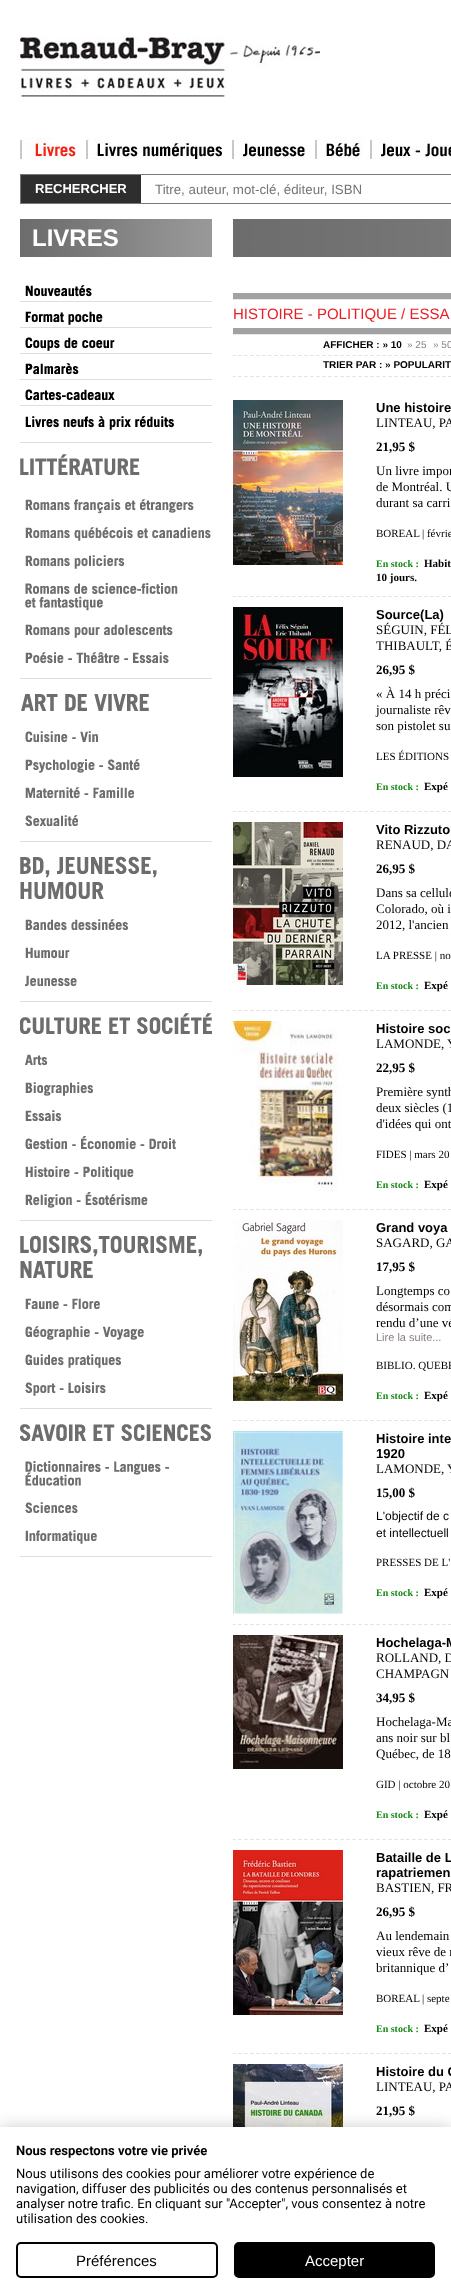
<?xml version="1.0" encoding="UTF-8"?>
<svg xmlns="http://www.w3.org/2000/svg" xmlns:xlink="http://www.w3.org/1999/xlink" width="451" height="2294">
  <rect width="100%" height="100%" fill="#ffffff" />
  <image x="20" y="137" width="56" height="22" xlink:href="image1.png" />
  <image x="86" y="137" width="136" height="22" xlink:href="image2.png" />
  <image x="232" y="138" width="79" height="21" xlink:href="image3.png" />
  <image x="315" y="137" width="48" height="22" xlink:href="image4.png" />
  <image x="370" y="138" width="81" height="21" xlink:href="image5.png" />
  <rect x="20.5" y="174.5" width="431" height="29" fill="none" stroke="#797979" />
  <rect x="21" y="175" width="120" height="28" fill="#2e2e2e" />
  <image x="20" y="37" width="300" height="60" xlink:href="image6.png" />
  <image x="233" y="2064" width="110" height="63" xlink:href="image55.png" />
  <rect y="2127" width="451" height="167" fill="#000000" fill-opacity="0.2" filter="blur(8px)" />
  <rect y="2127" width="451" height="167" fill="#ffffff" />
  <rect x="17" y="2243" width="200" height="34" rx="4" fill="none" stroke="#000000" stroke-width="2" />
  <rect x="235" y="2243" width="199" height="34" rx="4" fill="#000000" stroke="#000000" stroke-width="2" />
  <image x="20" y="219" width="431" height="38" xlink:href="image7.png" />
  <image x="20" y="285" width="192" height="17" xlink:href="image8.png" />
  <image x="20" y="311" width="192" height="17" xlink:href="image9.png" />
  <image x="20" y="337" width="192" height="17" xlink:href="image10.png" />
  <image x="20" y="363" width="192" height="17" xlink:href="image11.png" />
  <image x="20" y="389" width="192" height="17" xlink:href="image12.png" />
  <image x="20" y="416" width="192" height="27" xlink:href="image13.png" />
  <image x="20" y="454" width="120" height="21" xlink:href="image14.png" />
  <image x="25" y="499" width="169" height="15" xlink:href="image15.png" />
  <image x="25" y="527" width="186" height="14" xlink:href="image16.png" />
  <image x="25" y="555" width="100" height="14" xlink:href="image17.png" />
  <image x="25" y="583" width="153" height="28" xlink:href="image18.png" />
  <image x="25" y="624" width="148" height="14" xlink:href="image19.png" />
  <image x="20" y="652" width="192" height="27" xlink:href="image20.png" />
  <image x="21" y="694" width="128" height="17" xlink:href="image21.png" />
  <image x="25" y="731" width="73" height="12" xlink:href="image22.png" />
  <image x="25" y="759" width="115" height="14" xlink:href="image23.png" />
  <image x="25" y="787" width="109" height="12" xlink:href="image24.png" />
  <image x="20" y="815" width="192" height="27" xlink:href="image25.png" />
  <image x="20" y="856" width="137" height="43" xlink:href="image26.png" />
  <image x="25" y="919" width="103" height="12" xlink:href="image27.png" />
  <image x="25" y="947" width="45" height="12" xlink:href="image28.png" />
  <image x="20" y="975" width="192" height="27" xlink:href="image29.png" />
  <image x="20" y="1013" width="192" height="21" xlink:href="image30.png" />
  <image x="25" y="1054" width="23" height="12" xlink:href="image31.png" />
  <image x="25" y="1082" width="68" height="14" xlink:href="image32.png" />
  <image x="25" y="1110" width="37" height="12" xlink:href="image33.png" />
  <image x="25" y="1136" width="151" height="14" xlink:href="image34.png" />
  <image x="25" y="1166" width="109" height="14" xlink:href="image35.png" />
  <image x="20" y="1192" width="192" height="29" xlink:href="image36.png" />
  <image x="20" y="1235" width="182" height="43" xlink:href="image37.png" />
  <image x="25" y="1298" width="75" height="12" xlink:href="image38.png" />
  <image x="25" y="1326" width="119" height="14" xlink:href="image39.png" />
  <image x="25" y="1354" width="96" height="14" xlink:href="image40.png" />
  <image x="20" y="1382" width="192" height="27" xlink:href="image41.png" />
  <image x="20" y="1424" width="191" height="17" xlink:href="image42.png" />
  <image x="25" y="1461" width="144" height="25" xlink:href="image43.png" />
  <image x="25" y="1502" width="53" height="12" xlink:href="image44.png" />
  <image x="20" y="1530" width="192" height="27" xlink:href="image45.png" />
  <rect x="233" y="293" width="218" height="6" fill="#a0a2a4" />
  <rect x="233" y="299" width="218" height="1" fill="#e7e8e8" />
  <rect x="233" y="328" width="218" height="6" fill="#a0a2a4" />
  <rect x="233" y="334" width="218" height="1" fill="#e7e8e8" />
  <image x="233" y="355" width="218" height="1" xlink:href="image46.png" />
  <image x="233" y="376" width="218" height="1" xlink:href="image46.png" />
  <image x="233" y="400" width="110" height="165" xlink:href="image47.png" />
  <image x="233" y="596" width="218" height="1" xlink:href="image46.png" />
  <image x="233" y="607" width="110" height="170" xlink:href="image48.png" />
  <image x="233" y="811" width="218" height="1" xlink:href="image46.png" />
  <image x="233" y="822" width="110" height="163" xlink:href="image49.png" />
  <image x="233" y="1010" width="218" height="1" xlink:href="image46.png" />
  <image x="233" y="1021" width="110" height="170" xlink:href="image50.png" />
  <image x="233" y="1209" width="218" height="1" xlink:href="image46.png" />
  <image x="233" y="1220" width="110" height="181" xlink:href="image51.png" />
  <image x="233" y="1420" width="218" height="1" xlink:href="image46.png" />
  <image x="233" y="1431" width="110" height="183" xlink:href="image52.png" />
  <image x="233" y="1624" width="218" height="1" xlink:href="image46.png" />
  <image x="233" y="1635" width="110" height="134" xlink:href="image53.png" />
  <image x="233" y="1839" width="218" height="1" xlink:href="image46.png" />
  <image x="233" y="1850" width="110" height="165" xlink:href="image54.png" />
  <image x="233" y="2053" width="218" height="1" xlink:href="image46.png" />
  <text x="35" y="193" style="font-family: Liberation Sans; font-size: 13px; font-weight: bold; fill: #ffffff">RECHERCHER</text>
  <text x="155" y="194" style="font-family: Liberation Sans; font-size: 13.3px; fill: #757575">Titre, auteur, mot-clé, éditeur, ISBN</text>
  <text x="16" y="2155" style="font-family: Roboto; font-size: 13px; font-weight: bold; fill: #000000">Nous respectons votre vie privée</text>
  <text x="16" y="2178" style="font-family: Roboto; font-size: 13px; fill: #000000">Nous utilisons des cookies pour améliorer votre expérience de</text>
  <text x="16" y="2193" style="font-family: Roboto; font-size: 13px; fill: #000000">navigation, diffuser des publicités ou des contenus personnalisés et</text>
  <text x="16" y="2208" style="font-family: Roboto; font-size: 13px; fill: #000000">analyser notre trafic. En cliquant sur "Accepter", vous consentez à notre</text>
  <text x="16" y="2223" style="font-family: Roboto; font-size: 13px; fill: #000000">utilisation des cookies.</text>
  <text x="76" y="2266" style="font-family: Liberation Sans; font-size: 15px; fill: #000000">Préférences</text>
  <text x="305" y="2266" style="font-family: Liberation Sans; font-size: 15px; fill: #ffffff">Accepter</text>
  <text x="32" y="246" style="font-family: Liberation Sans; font-size: 24px; font-weight: bold; fill: #ffffff">LIVRES</text>
  <text x="233" y="319" style="font-family: Liberation Sans; font-size: 15px; fill: #eb1c24">HISTOIRE - POLITIQUE / ESSA</text>
  <text x="323" y="348" style="font-family: Liberation Sans; font-size: 10px; font-weight: bold; fill: #000000">AFFICHER : » 10</text>
  <text x="407" y="348" style="font-family: Liberation Sans; font-size: 10px; fill: #8a817e">» 25</text>
  <text x="433" y="348" style="font-family: Liberation Sans; font-size: 10px; fill: #8a817e">» 50</text>
  <text x="323" y="368" style="font-family: Liberation Sans; font-size: 10px; font-weight: bold; fill: #000000">TRIER PAR : » POPULARIT</text>
  <text x="376" y="412" style="font-family: Liberation Sans; font-size: 13px; font-weight: bold; fill: #000000">Une histoire</text>
  <text x="376" y="427" style="font-family: Liberation Serif; font-size: 13px; fill: #000000">LINTEAU, PA</text>
  <text x="376" y="451" style="font-family: Liberation Serif; font-size: 13px; font-weight: bold; fill: #000000">21,95 $</text>
  <text x="376" y="475" style="font-family: Liberation Serif; font-size: 13px; fill: #000000">Un livre impor</text>
  <text x="376" y="491" style="font-family: Liberation Serif; font-size: 13px; fill: #000000">de Montréal. U</text>
  <text x="376" y="507" style="font-family: Liberation Serif; font-size: 13px; fill: #000000">durant sa carri</text>
  <text x="376" y="537" style="font-family: Liberation Serif; font-size: 11px; fill: #000000">BOREAL</text>
  <text x="422" y="537" style="font-family: Liberation Serif; font-size: 11px; fill: #000000">| févrie</text>
  <text x="376" y="567" style="font-family: Liberation Serif; font-size: 10px; font-weight: bold; fill: #158912">En stock :</text>
  <text x="424" y="567" style="font-family: Liberation Serif; font-size: 11px; font-weight: bold; fill: #000000">Habit</text>
  <text x="376" y="581" style="font-family: Liberation Serif; font-size: 11px; font-weight: bold; fill: #000000">10 jours.</text>
  <text x="376" y="619" style="font-family: Liberation Sans; font-size: 13px; font-weight: bold; fill: #000000">Source(La)</text>
  <text x="376" y="634" style="font-family: Liberation Serif; font-size: 13px; fill: #000000">SÉGUIN, FÉL</text>
  <text x="376" y="650" style="font-family: Liberation Serif; font-size: 13px; fill: #000000">THIBAULT, É</text>
  <text x="376" y="674" style="font-family: Liberation Serif; font-size: 13px; font-weight: bold; fill: #000000">26,95 $</text>
  <text x="376" y="698" style="font-family: Liberation Serif; font-size: 13px; fill: #000000">« À 14 h préci</text>
  <text x="376" y="714" style="font-family: Liberation Serif; font-size: 13px; fill: #000000">journaliste rêv</text>
  <text x="376" y="730" style="font-family: Liberation Serif; font-size: 13px; fill: #000000">son pistolet su</text>
  <text x="376" y="760" style="font-family: Liberation Serif; font-size: 11px; fill: #000000">LES ÉDITIONS</text>
  <text x="376" y="790" style="font-family: Liberation Serif; font-size: 10px; font-weight: bold; fill: #158912">En stock :</text>
  <text x="424" y="790" style="font-family: Liberation Serif; font-size: 11px; font-weight: bold; fill: #000000">Expé</text>
  <text x="376" y="834" style="font-family: Liberation Sans; font-size: 13px; font-weight: bold; fill: #000000">Vito Rizzuto</text>
  <text x="376" y="849" style="font-family: Liberation Serif; font-size: 13px; fill: #000000">RENAUD, DA</text>
  <text x="376" y="873" style="font-family: Liberation Serif; font-size: 13px; font-weight: bold; fill: #000000">26,95 $</text>
  <text x="376" y="897" style="font-family: Liberation Serif; font-size: 13px; fill: #000000">Dans sa cellule</text>
  <text x="376" y="913" style="font-family: Liberation Serif; font-size: 13px; fill: #000000">Colorado, où i</text>
  <text x="376" y="929" style="font-family: Liberation Serif; font-size: 13px; fill: #000000">2012, l'ancien</text>
  <text x="376" y="959" style="font-family: Liberation Serif; font-size: 11px; fill: #000000">LA PRESSE | no</text>
  <text x="376" y="989" style="font-family: Liberation Serif; font-size: 10px; font-weight: bold; fill: #158912">En stock :</text>
  <text x="424" y="989" style="font-family: Liberation Serif; font-size: 11px; font-weight: bold; fill: #000000">Expé</text>
  <text x="376" y="1033" style="font-family: Liberation Sans; font-size: 13px; font-weight: bold; fill: #000000">Histoire soc</text>
  <text x="376" y="1048" style="font-family: Liberation Serif; font-size: 13px; fill: #000000">LAMONDE, Y</text>
  <text x="376" y="1072" style="font-family: Liberation Serif; font-size: 13px; font-weight: bold; fill: #000000">22,95 $</text>
  <text x="376" y="1096" style="font-family: Liberation Serif; font-size: 13px; fill: #000000">Première synth</text>
  <text x="376" y="1112" style="font-family: Liberation Serif; font-size: 13px; fill: #000000">deux siècles (1</text>
  <text x="376" y="1128" style="font-family: Liberation Serif; font-size: 13px; fill: #000000">d'idées qui ont</text>
  <text x="376" y="1158" style="font-family: Liberation Serif; font-size: 11px; fill: #000000">FIDES | mars 20</text>
  <text x="376" y="1188" style="font-family: Liberation Serif; font-size: 10px; font-weight: bold; fill: #158912">En stock :</text>
  <text x="424" y="1188" style="font-family: Liberation Serif; font-size: 11px; font-weight: bold; fill: #000000">Expé</text>
  <text x="376" y="1232" style="font-family: Liberation Sans; font-size: 13px; font-weight: bold; fill: #000000">Grand voya</text>
  <text x="376" y="1247" style="font-family: Liberation Serif; font-size: 13px; fill: #000000">SAGARD, GA</text>
  <text x="376" y="1271" style="font-family: Liberation Serif; font-size: 13px; font-weight: bold; fill: #000000">17,95 $</text>
  <text x="376" y="1295" style="font-family: Liberation Serif; font-size: 13px; fill: #000000">Longtemps co</text>
  <text x="376" y="1311" style="font-family: Liberation Serif; font-size: 13px; fill: #000000">désormais com</text>
  <text x="376" y="1327" style="font-family: Liberation Serif; font-size: 13px; fill: #000000">rendu d’une vé</text>
  <text x="376" y="1341" style="font-family: Liberation Sans; font-size: 11px; fill: #8a817e">Lire la suite...</text>
  <text x="376" y="1369" style="font-family: Liberation Serif; font-size: 11px; fill: #000000">BIBLIO. QUEBE</text>
  <text x="376" y="1399" style="font-family: Liberation Serif; font-size: 10px; font-weight: bold; fill: #158912">En stock :</text>
  <text x="424" y="1399" style="font-family: Liberation Serif; font-size: 11px; font-weight: bold; fill: #000000">Expé</text>
  <text x="376" y="1443" style="font-family: Liberation Sans; font-size: 13px; font-weight: bold; fill: #000000">Histoire inte</text>
  <text x="376" y="1458" style="font-family: Liberation Sans; font-size: 13px; font-weight: bold; fill: #000000">1920</text>
  <text x="376" y="1473" style="font-family: Liberation Serif; font-size: 13px; fill: #000000">LAMONDE, Y</text>
  <text x="376" y="1497" style="font-family: Liberation Serif; font-size: 13px; font-weight: bold; fill: #000000">15,00 $</text>
  <text x="376" y="1520" style="font-family: Liberation Sans; font-size: 12px; fill: #000000">L'objectif de c</text>
  <text x="376" y="1537" style="font-family: Liberation Sans; font-size: 12px; fill: #000000">et intellectuell</text>
  <text x="376" y="1566" style="font-family: Liberation Serif; font-size: 11px; fill: #000000">PRESSES DE L'</text>
  <text x="376" y="1596" style="font-family: Liberation Serif; font-size: 10px; font-weight: bold; fill: #158912">En stock :</text>
  <text x="424" y="1596" style="font-family: Liberation Serif; font-size: 11px; font-weight: bold; fill: #000000">Expé</text>
  <text x="376" y="1647" style="font-family: Liberation Sans; font-size: 13px; font-weight: bold; fill: #000000">Hochelaga-M</text>
  <text x="376" y="1662" style="font-family: Liberation Serif; font-size: 13px; fill: #000000">ROLLAND, D</text>
  <text x="376" y="1678" style="font-family: Liberation Serif; font-size: 13px; fill: #000000">CHAMPAGN</text>
  <text x="376" y="1702" style="font-family: Liberation Serif; font-size: 13px; font-weight: bold; fill: #000000">34,95 $</text>
  <text x="376" y="1726" style="font-family: Liberation Serif; font-size: 13px; fill: #000000">Hochelaga-Ma</text>
  <text x="376" y="1742" style="font-family: Liberation Serif; font-size: 13px; fill: #000000">ans noir sur bl</text>
  <text x="376" y="1758" style="font-family: Liberation Serif; font-size: 13px; fill: #000000">Québec, de 18</text>
  <text x="376" y="1788" style="font-family: Liberation Serif; font-size: 11px; fill: #000000">GID | octobre 20</text>
  <text x="376" y="1818" style="font-family: Liberation Serif; font-size: 10px; font-weight: bold; fill: #158912">En stock :</text>
  <text x="424" y="1818" style="font-family: Liberation Serif; font-size: 11px; font-weight: bold; fill: #000000">Expé</text>
  <text x="376" y="1862" style="font-family: Liberation Sans; font-size: 13px; font-weight: bold; fill: #000000">Bataille de L</text>
  <text x="376" y="1877" style="font-family: Liberation Sans; font-size: 13px; font-weight: bold; fill: #000000">rapatriemen</text>
  <text x="376" y="1892" style="font-family: Liberation Serif; font-size: 13px; fill: #000000">BASTIEN, FR</text>
  <text x="376" y="1916" style="font-family: Liberation Serif; font-size: 13px; font-weight: bold; fill: #000000">26,95 $</text>
  <text x="376" y="1940" style="font-family: Liberation Serif; font-size: 13px; fill: #000000">Au lendemain</text>
  <text x="376" y="1956" style="font-family: Liberation Serif; font-size: 13px; fill: #000000">vieux rêve de r</text>
  <text x="376" y="1972" style="font-family: Liberation Serif; font-size: 13px; fill: #000000">britannique d’</text>
  <text x="376" y="2002" style="font-family: Liberation Serif; font-size: 11px; fill: #000000">BOREAL</text>
  <text x="422" y="2002" style="font-family: Liberation Serif; font-size: 11px; fill: #000000">| septe</text>
  <text x="376" y="2032" style="font-family: Liberation Serif; font-size: 10px; font-weight: bold; fill: #158912">En stock :</text>
  <text x="424" y="2032" style="font-family: Liberation Serif; font-size: 11px; font-weight: bold; fill: #000000">Expé</text>
  <text x="376" y="2076" style="font-family: Liberation Sans; font-size: 13px; font-weight: bold; fill: #000000">Histoire du C</text>
  <text x="376" y="2091" style="font-family: Liberation Serif; font-size: 13px; fill: #000000">LINTEAU, PA</text>
  <text x="376" y="2115" style="font-family: Liberation Serif; font-size: 13px; font-weight: bold; fill: #000000">21,95 $</text>
</svg>
